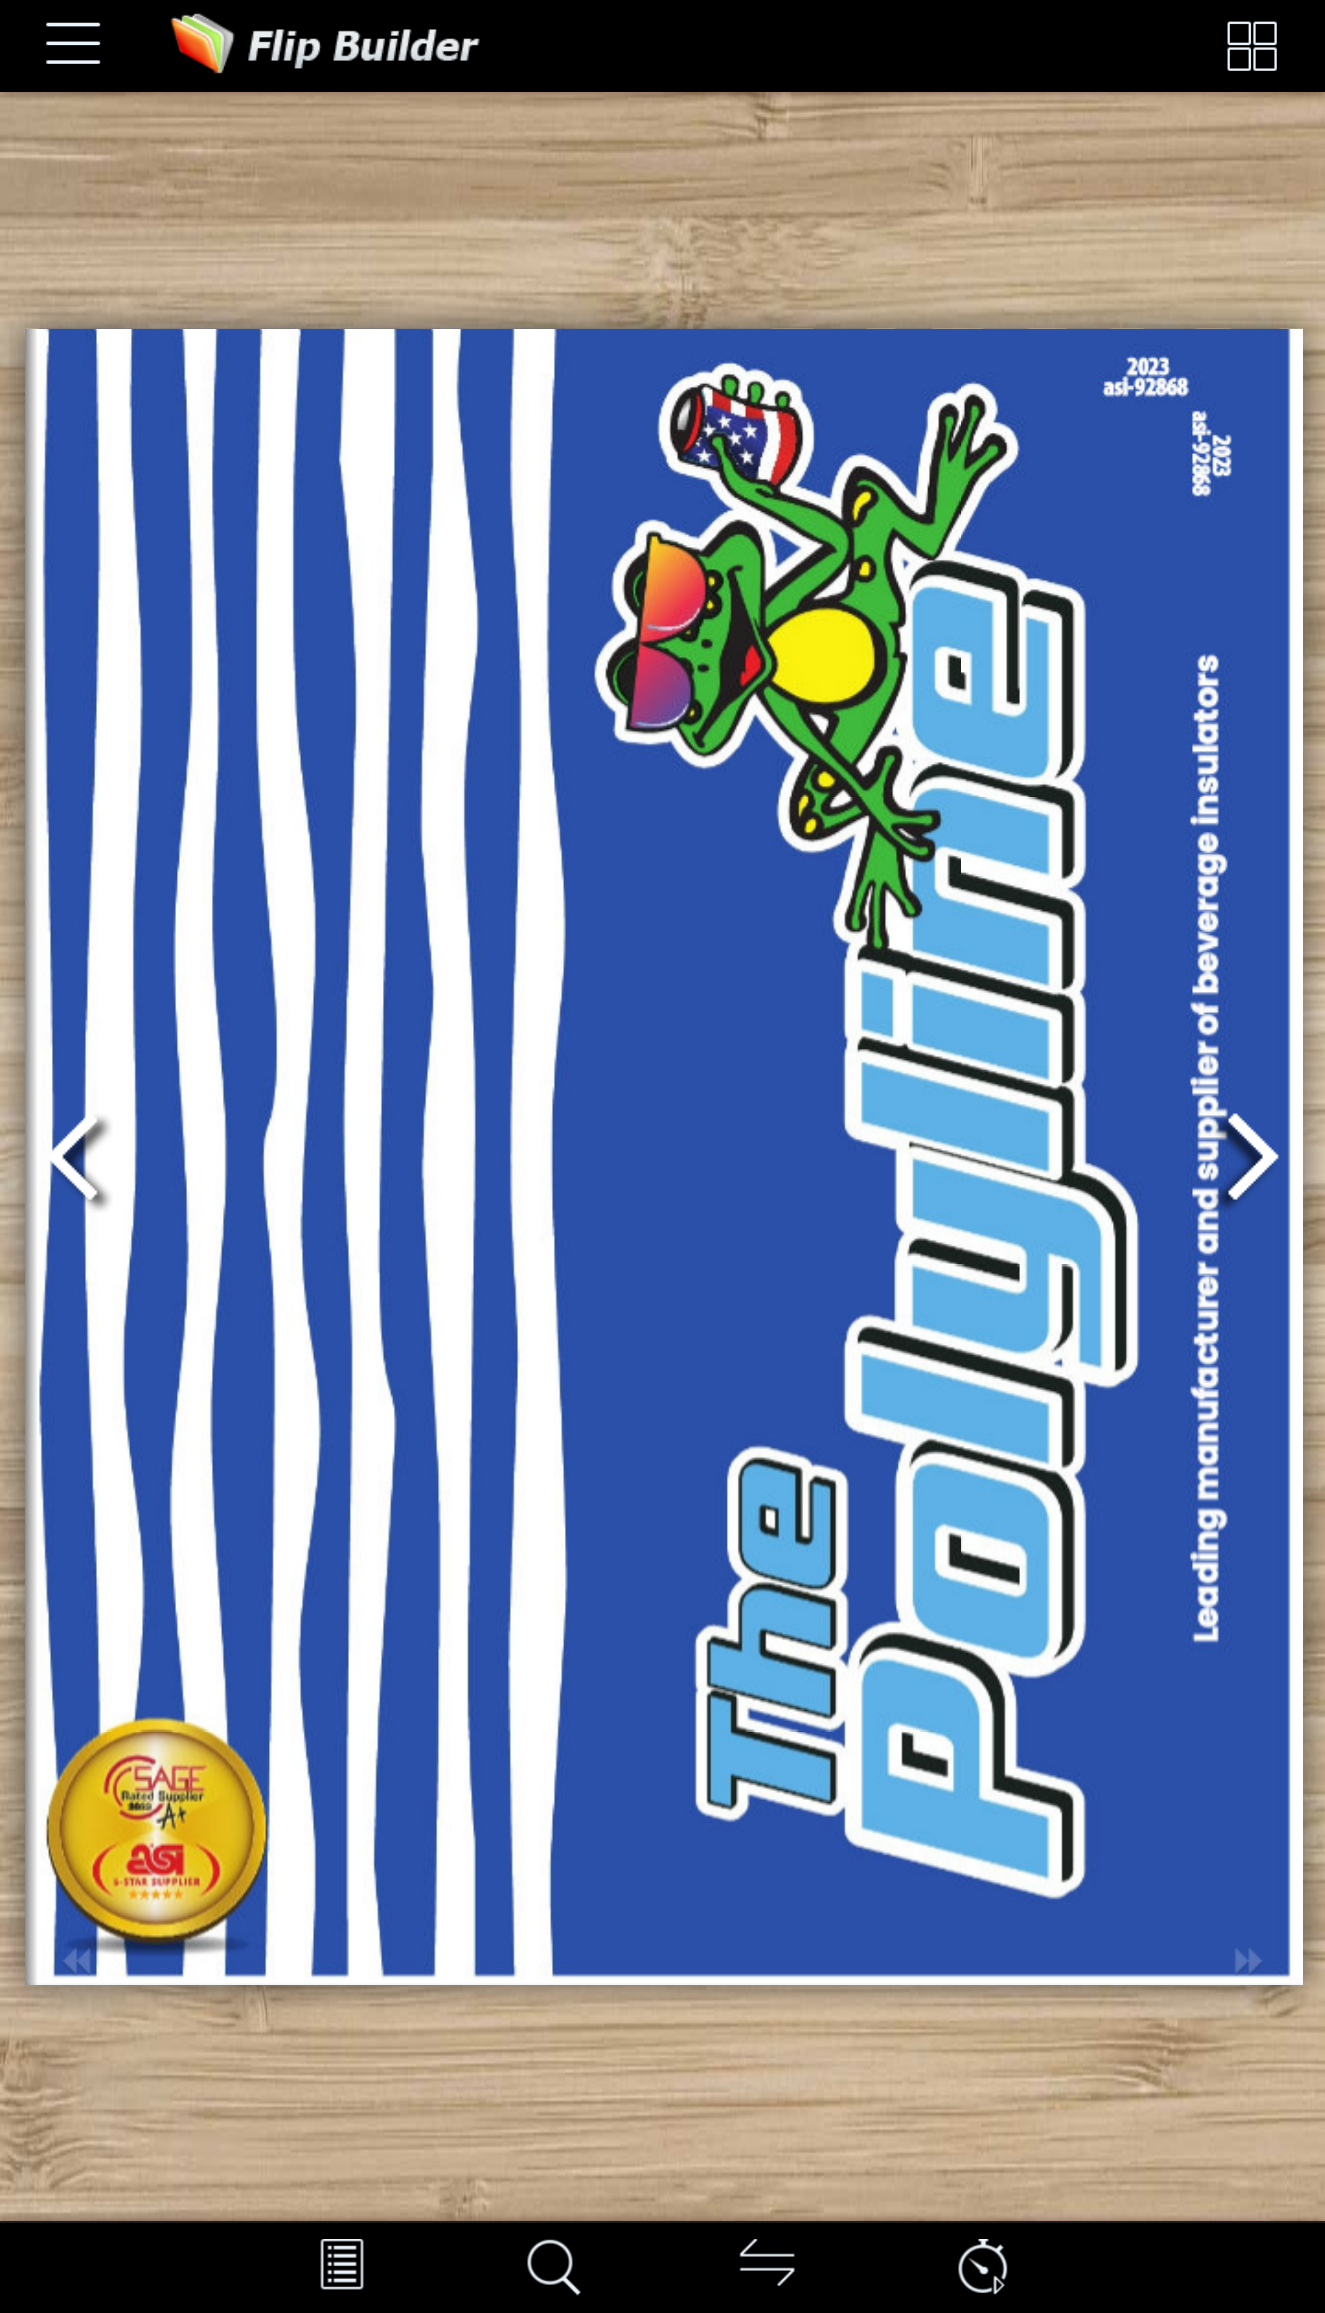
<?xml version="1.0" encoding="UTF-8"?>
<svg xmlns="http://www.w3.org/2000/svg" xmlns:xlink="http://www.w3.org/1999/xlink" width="1325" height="2313">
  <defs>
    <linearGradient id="g1" gradientUnits="userSpaceOnUse" x1="25" y1="1157" x2="38" y2="1157"><stop offset="0" stop-color="#141414" stop-opacity="0.5" /><stop offset="1" stop-color="#141414" stop-opacity="0" /></linearGradient>
  </defs>
  <rect width="100%" height="100%" fill="#ffffff" />
  <image x="0" y="92" width="1325" height="2129" xlink:href="image4.png" />
  <rect width="1325" height="92" fill="#280000" fill-opacity="0.5" filter="blur(5.5px)" />
  <rect width="1325" height="92" fill="#000000" />
  <image x="46" y="22" width="55" height="42" xlink:href="image1.png" />
  <image x="170" y="13" width="310" height="61" xlink:href="image2.png" />
  <image x="1227" y="21" width="50" height="50" xlink:href="image3.png" />
  <rect x="25" y="329" width="1278" height="1656" fill="#282828" fill-opacity="0.7" filter="blur(17px)" />
  <image x="25" y="328" width="1278" height="1" xlink:href="image5.png" />
  <rect x="25" y="1983" width="1278" height="2" fill="#e8e8e8" />
  <image x="25" y="329" width="1278" height="1656" xlink:href="image6.png" />
  <rect x="25" y="329" width="12" height="1656" fill="url(#g1)" />
  <image x="48" y="1113" width="65" height="100" xlink:href="image7.png" />
  <image x="1213" y="1113" width="66" height="100" xlink:href="image8.png" />
  <image x="62" y="1947" width="29" height="29" xlink:href="image9.png" />
  <image x="1234" y="1948" width="29" height="28" xlink:href="image10.png" />
  <rect y="2221" width="1325" height="92" fill="#280000" fill-opacity="0.5" filter="blur(5.5px)" />
  <rect y="2223" width="1325" height="90" fill="#000000" />
  <rect y="2221" width="1325" height="2" fill="#1e1e1e" />
  <image x="320" y="2239" width="44" height="51" xlink:href="image11.png" />
  <image x="527" y="2239" width="54" height="57" xlink:href="image12.png" />
  <image x="739" y="2239" width="56" height="47" xlink:href="image13.png" />
  <image x="958" y="2239" width="50" height="56" xlink:href="image14.png" />
</svg>
